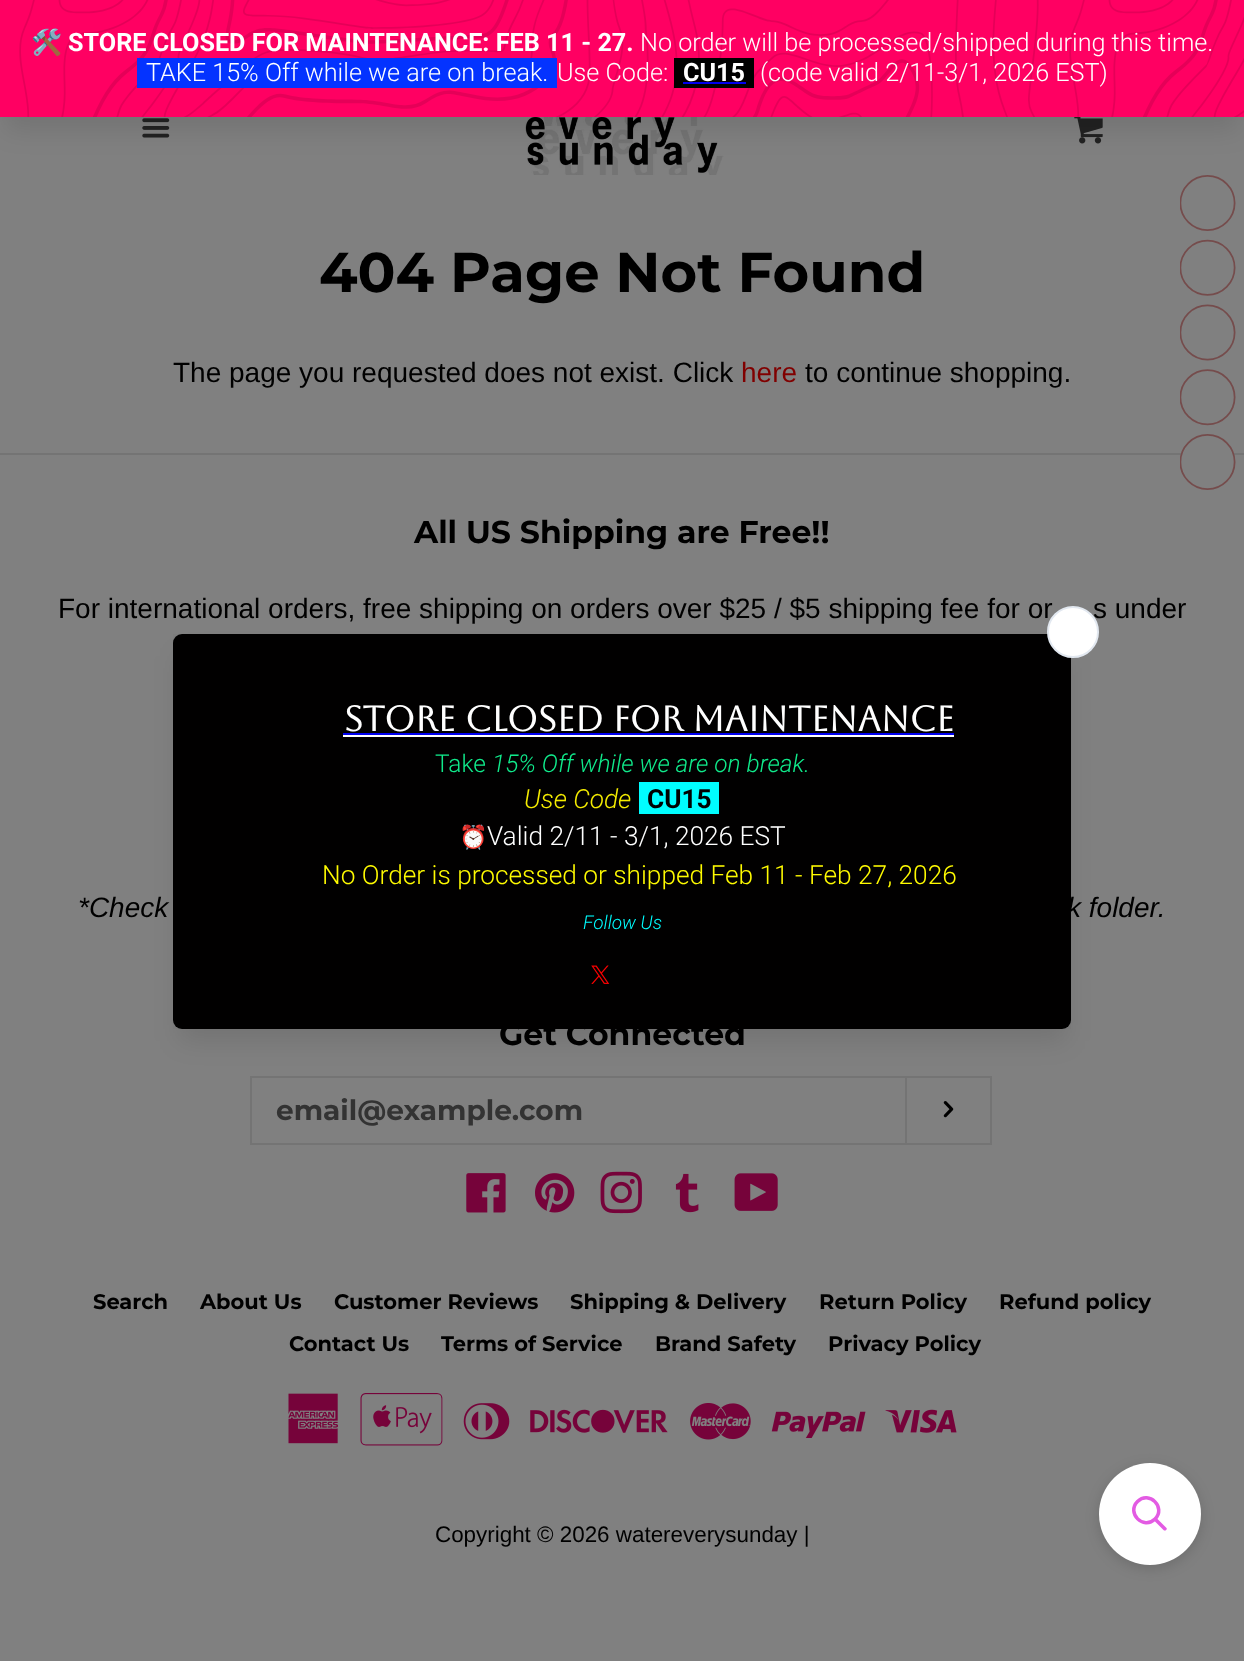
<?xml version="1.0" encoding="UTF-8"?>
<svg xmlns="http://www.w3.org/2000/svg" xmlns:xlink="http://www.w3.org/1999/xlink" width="1244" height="1661">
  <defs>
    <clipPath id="clip1"><rect x="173" y="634" width="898" height="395" /></clipPath>
  </defs>
  <rect width="100%" height="100%" fill="#808080" />
  <image x="142" y="118" width="28" height="20" xlink:href="image3.png" />
  <image x="523" y="117" width="201" height="58" xlink:href="image4.png" />
  <image x="1074" y="117" width="29" height="27" xlink:href="image5.png" />
  <rect x="5" y="23" width="1234" height="107" fill="#000000" fill-opacity="0.1" filter="blur(13px)" />
  <rect width="1244" height="117" fill="#ff0062" />
  <image x="19" y="0" width="1225" height="117" xlink:href="image1.png" />
  <rect x="137" y="58" width="420" height="30" fill="#0433ff" />
  <rect x="674" y="58" width="80" height="30" fill="#000000" />
  <rect x="683" y="82" width="63" height="2" fill="#0000ee" />
  <rect x="251" y="1077" width="740" height="67" fill="none" stroke="#747474" stroke-width="2" />
  <rect x="905" y="1078" width="2" height="65" fill="#747474" />
  <rect x="179" y="656" width="887" height="385" rx="4" fill="#000000" fill-opacity="0.1" filter="blur(13px)" />
  <g clip-path="url(#clip1)">
    <rect x="179" y="639" width="887" height="385" rx="4" fill="#000000" fill-opacity="0.12" filter="blur(17.5px)" />
  </g>
  <rect y="453" width="1244" height="2" fill="#747474" />
  <image x="943" y="1101" width="11" height="17" xlink:href="image6.png" />
  <image x="466" y="1173" width="40" height="40" xlink:href="image7.png" />
  <image x="535" y="1173" width="40" height="40" xlink:href="image8.png" />
  <image x="600" y="1171" width="42" height="43" xlink:href="image9.png" />
  <image x="675" y="1173" width="24" height="40" xlink:href="image10.png" />
  <image x="734" y="1173" width="44" height="38" xlink:href="image11.png" />
  <image x="288" y="1393" width="50" height="51" xlink:href="image12.png" />
  <image x="360" y="1393" width="83" height="53" xlink:href="image13.png" />
  <image x="463" y="1403" width="47" height="37" xlink:href="image14.png" />
  <image x="530" y="1409" width="138" height="24" xlink:href="image15.png" />
  <image x="690" y="1403" width="61" height="37" xlink:href="image16.png" />
  <image x="771" y="1411" width="95" height="27" xlink:href="image17.png" />
  <image x="885" y="1409" width="72" height="24" xlink:href="image18.png" />
  <image x="1180" y="175" width="56" height="315" xlink:href="image19.png" />
  <rect x="1099" y="1467" width="102" height="101" rx="50.5" fill="#000000" fill-opacity="0.15" filter="blur(7px)" />
  <circle cx="1150" cy="1514" r="51" fill="#ffffff" />
  <path d="M 1137.5 1501.5 c 11.5 -11.5 29 6 17.5 17.5 c -11.5 11.5 -29 -6 -17.5 -17.5 z" fill="none" stroke="#e35be3" stroke-width="3.5" />
  <path d="M 1153.5 1520 l 2.5 -2.5 l 10.5 10.5 c 1 1.5 -1.5 3.5 -3 2 z" fill="#e35be3" />
  <text x="31" y="51" style="font-family: Noto Color Emoji; font-size: 25.2px; font-weight: bold; fill: #ffffff">🛠️</text>
  <text x="68" y="51" style="font-family: Roboto; font-size: 25.2px; font-weight: bold; fill: #ffffff">STORE CLOSED FOR MAINTENANCE: FEB 11 - 27.</text>
  <text x="640" y="51" style="font-family: Roboto; font-size: 25.2px; font-weight: 300; fill: #ffffff">No order will be processed/shipped during this time.</text>
  <text x="146" y="81" style="font-family: Roboto; font-size: 25.2px; font-weight: 300; fill: #ffffff">TAKE 15% Off while we are on break.</text>
  <text x="557" y="81" style="font-family: Roboto; font-size: 25.2px; font-weight: 300; fill: #ffffff">Use Code:</text>
  <text x="683" y="81" style="font-family: Roboto; font-size: 25.2px; font-weight: bold; fill: #ffffff">CU15</text>
  <text x="760" y="81" style="font-family: Roboto; font-size: 25.2px; font-weight: 300; fill: #ffffff">(code valid 2/11-3/1, 2026 EST)</text>
  <text x="319" y="292" style="font-family: Montserrat; font-size: 56px; font-weight: 100; fill: #000000">404 Page Not Found</text>
  <text x="173" y="382" style="font-family: Liberation Sans; font-size: 28px; fill: #000000">The page you requested does not exist. Click</text>
  <text x="741" y="382" style="font-family: Liberation Sans; font-size: 28px; fill: #800000">here</text>
  <text x="805" y="382" style="font-family: Liberation Sans; font-size: 28px; fill: #000000">to continue shopping.</text>
  <text x="414" y="543" style="font-family: Montserrat; font-size: 31.5px; font-weight: 100; fill: #000000">All US Shipping are Free!!</text>
  <text x="58" y="618" style="font-family: Liberation Sans; font-size: 28px; fill: #000000">For international orders, free shipping on orders over $25 / $5 shipping fee for or</text>
  <text x="1093" y="618" style="font-family: Liberation Sans; font-size: 28px; fill: #000000">s under</text>
  <text x="78" y="917" style="font-family: Liberation Sans; font-size: 28px; font-style: italic; fill: #000000">*Check</text>
  <text x="1067" y="917" style="font-family: Liberation Sans; font-size: 28px; font-style: italic; fill: #000000">k folder.</text>
  <text x="499" y="1045" style="font-family: Montserrat; font-size: 31.5px; font-weight: 100; fill: #000000">Get Connected</text>
  <rect x="173" y="634" width="898" height="395" rx="9" fill="#010000" />
  <circle cx="1073" cy="632" r="25" fill="#ffffff" stroke="#e2e8f0" stroke-width="2" />
  <image x="591" y="965" width="19" height="19" xlink:href="image2.png" />
  <text x="583" y="929" style="font-family: Roboto; font-size: 19px; font-weight: 300; font-style: italic; fill: #00fdff">Follow Us</text>
  <text x="322" y="884" style="font-family: Roboto; font-size: 26.25px; font-weight: 300; fill: #fffb00">No Order is processed or shipped Feb 11 - Feb 27, 2026</text>
  <text x="487" y="845" style="font-family: Roboto; font-size: 26.25px; font-weight: 300; fill: #ffffff">Valid 2/11 - 3/1, 2026 EST</text>
  <text x="459" y="845" style="font-family: Noto Color Emoji; font-size: 23px; fill: #ffffff">⏰</text>
  <rect x="639" y="782" width="80" height="32" fill="#00fdff" />
  <text x="647" y="808" style="font-family: Roboto; font-size: 26.25px; font-weight: bold; fill: #000000">CU15</text>
  <text x="524" y="808" style="font-family: Roboto; font-size: 26.25px; font-weight: 300; font-style: italic; fill: #f5ec00">Use Code</text>
  <text x="492" y="772" style="font-family: Roboto; font-size: 24.5px; font-weight: 300; font-style: italic; fill: #10ea8b">15% Off while we are on break.</text>
  <text x="435" y="772" style="font-family: Roboto; font-size: 24.5px; font-weight: 300; fill: #10ea8b">Take</text>
  <text x="344" y="731" style="font-family: Aboreto; font-size: 35px; font-weight: bold; fill: #ffffff">Store Closed for Maintenance</text>
  <rect x="343" y="733" width="611" height="2" fill="#0000ee" />
  <rect x="343" y="735" width="611" height="2" fill="#ffffff" />
  <text x="276" y="1120" style="font-family: Montserrat; font-size: 28px; font-weight: 100; fill: #333333">email@example.com</text>
  <text x="93" y="1309" style="font-family: Montserrat; font-size: 21px; font-weight: 100; fill: #000000">Search</text>
  <text x="200" y="1309" style="font-family: Montserrat; font-size: 21px; font-weight: 100; fill: #000000">About Us</text>
  <text x="334" y="1309" style="font-family: Montserrat; font-size: 21px; font-weight: 100; fill: #000000">Customer Reviews</text>
  <text x="570" y="1309" style="font-family: Montserrat; font-size: 21px; font-weight: 100; fill: #000000">Shipping &amp; Delivery</text>
  <text x="819" y="1309" style="font-family: Montserrat; font-size: 21px; font-weight: 100; fill: #000000">Return Policy</text>
  <text x="999" y="1309" style="font-family: Montserrat; font-size: 21px; font-weight: 100; fill: #000000">Refund policy</text>
  <text x="289" y="1351" style="font-family: Montserrat; font-size: 21px; font-weight: 100; fill: #000000">Contact Us</text>
  <text x="441" y="1351" style="font-family: Montserrat; font-size: 21px; font-weight: 100; fill: #000000">Terms of Service</text>
  <text x="655" y="1351" style="font-family: Montserrat; font-size: 21px; font-weight: 100; fill: #000000">Brand Safety</text>
  <text x="828" y="1351" style="font-family: Montserrat; font-size: 21px; font-weight: 100; fill: #000000">Privacy Policy</text>
  <text x="435" y="1542" style="font-family: Liberation Sans; font-size: 22.4px; fill: #000000">Copyright © 2026 watereverysunday |</text>
</svg>
